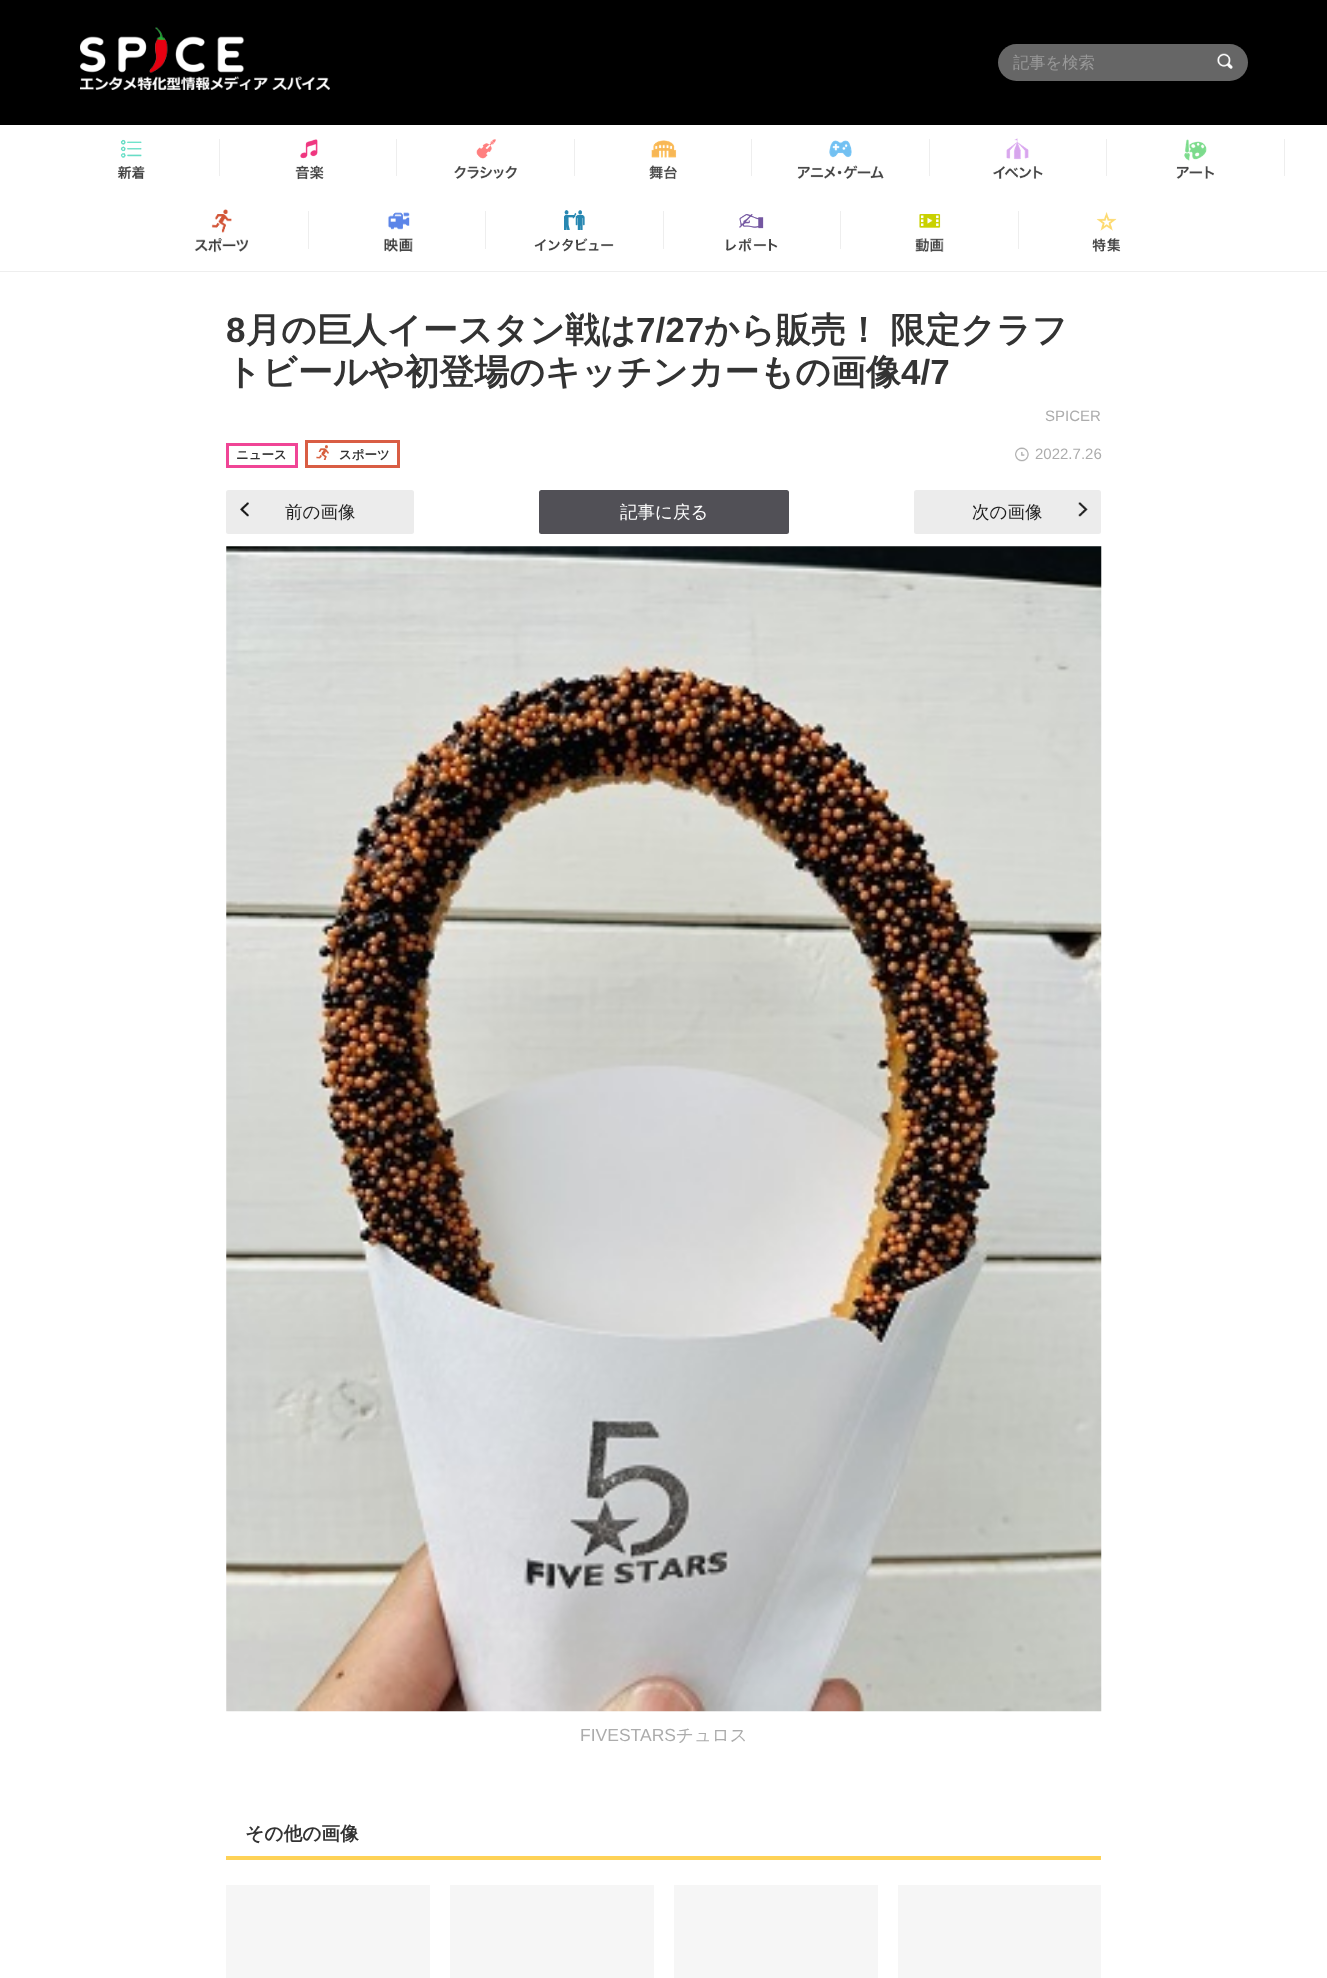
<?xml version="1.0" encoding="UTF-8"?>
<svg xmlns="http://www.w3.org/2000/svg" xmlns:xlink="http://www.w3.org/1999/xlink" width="1327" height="1978">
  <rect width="100%" height="100%" fill="#ffffff" />
  <rect width="1327" height="125" fill="#000000" />
  <image x="80" y="27" width="250" height="63" xlink:href="image1.png" />
  <rect x="998" y="44" width="250" height="37" rx="18.5" fill="#666666" />
  <image x="1217" y="53" width="16" height="16" xlink:href="image2.png" />
  <rect y="271" width="1327" height="1" fill="#eeeeee" />
  <image x="117" y="139" width="28" height="40" xlink:href="image3.png" />
  <rect x="219" y="139" width="1" height="37" fill="#eeeeee" />
  <image x="295" y="139" width="29" height="41" xlink:href="image4.png" />
  <rect x="396" y="139" width="1" height="37" fill="#eeeeee" />
  <image x="454" y="139" width="63" height="40" xlink:href="image5.png" />
  <rect x="574" y="139" width="1" height="37" fill="#eeeeee" />
  <image x="649" y="140" width="28" height="40" xlink:href="image6.png" />
  <rect x="751" y="139" width="1" height="37" fill="#eeeeee" />
  <image x="797" y="140" width="87" height="39" xlink:href="image7.png" />
  <rect x="929" y="139" width="1" height="37" fill="#eeeeee" />
  <image x="993" y="138" width="50" height="41" xlink:href="image8.png" />
  <rect x="1106" y="139" width="1" height="37" fill="#eeeeee" />
  <image x="1176" y="139" width="38" height="40" xlink:href="image9.png" />
  <rect x="1284" y="139" width="1" height="37" fill="#eeeeee" />
  <image x="194" y="209" width="55" height="44" xlink:href="image10.png" />
  <rect x="308" y="211" width="1" height="38" fill="#eeeeee" />
  <image x="384" y="212" width="29" height="40" xlink:href="image11.png" />
  <rect x="485" y="211" width="1" height="38" fill="#eeeeee" />
  <image x="534" y="210" width="80" height="42" xlink:href="image12.png" />
  <rect x="663" y="211" width="1" height="38" fill="#eeeeee" />
  <image x="726" y="214" width="52" height="38" xlink:href="image13.png" />
  <rect x="840" y="211" width="1" height="38" fill="#eeeeee" />
  <image x="915" y="214" width="29" height="38" xlink:href="image14.png" />
  <rect x="1018" y="211" width="1" height="38" fill="#eeeeee" />
  <image x="1092" y="212" width="29" height="40" xlink:href="image15.png" />
  <rect x="227.5" y="444.5" width="69" height="22" fill="none" stroke="#f04596" stroke-width="3" />
  <rect x="306.5" y="441.5" width="92" height="25" fill="none" stroke="#d95d44" stroke-width="3" />
  <image x="316" y="445" width="13" height="15" xlink:href="image16.png" />
  <image x="1015" y="447" width="14" height="15" xlink:href="image17.png" />
  <rect x="226" y="490" width="188" height="44" rx="2.5" fill="#ececec" />
  <image x="240" y="502" width="9" height="15" xlink:href="image18.png" />
  <rect x="539" y="490" width="250" height="44" rx="2.5" fill="#515056" />
  <rect x="914" y="490" width="187" height="44" rx="2.5" fill="#ececec" />
  <image x="1078" y="502" width="10" height="15" xlink:href="image19.png" />
  <image x="226" y="546" width="876" height="1166" xlink:href="image20.png" />
  <rect x="226" y="1856" width="875" height="4" fill="#fed257" />
  <rect x="226" y="1885" width="204" height="93" fill="#f6f6f6" />
  <rect x="450" y="1885" width="204" height="93" fill="#f6f6f6" />
  <rect x="674" y="1885" width="204" height="93" fill="#f6f6f6" />
  <rect x="898" y="1885" width="203" height="93" fill="#f6f6f6" />
  <text x="1013" y="68" style="font-family: WenQuanYi Zen Hei; font-size: 16.25px; font-weight: 500; fill: #999999">記事を検索</text>
  <text x="226" y="342" style="font-family: Liberation Sans; font-size: 35px; font-weight: bold; fill: #333333">8</text>
  <text x="246" y="342" style="font-family: WenQuanYi Zen Hei; font-size: 35px; font-weight: bold; fill: #333333">月の巨人イースタン戦は</text>
  <text x="636" y="342" style="font-family: Liberation Sans; font-size: 35px; font-weight: bold; fill: #333333">7/27</text>
  <text x="704" y="342" word-spacing="-1" style="font-family: WenQuanYi Zen Hei; font-size: 35px; font-weight: bold; fill: #333333">から販売！ 限定クラフ</text>
  <text x="226" y="384" style="font-family: WenQuanYi Zen Hei; font-size: 35px; font-weight: bold; fill: #333333">トビールや初登場のキッチンカーもの画像</text>
  <text x="901" y="384" style="font-family: Liberation Sans; font-size: 35px; font-weight: bold; fill: #333333">4/7</text>
  <text x="1045" y="421" style="font-family: Liberation Sans; font-size: 15px; fill: #acacac">SPICER</text>
  <text x="236" y="459" style="font-family: WenQuanYi Zen Hei; font-size: 12.5px; font-weight: bold; fill: #333333">ニュース</text>
  <text x="339" y="459" style="font-family: WenQuanYi Zen Hei; font-size: 12.5px; font-weight: bold; fill: #333333">スポーツ</text>
  <text x="1035" y="459" style="font-family: Liberation Sans; font-size: 15px; fill: #acacac">2022.7.26</text>
  <text x="285" y="518" style="font-family: WenQuanYi Zen Hei; font-size: 17.5px; font-weight: 500; fill: #1e1e1e">前の画像</text>
  <text x="620" y="518" style="font-family: WenQuanYi Zen Hei; font-size: 17.5px; font-weight: 500; fill: #ffffff">記事に戻る</text>
  <text x="972" y="518" style="font-family: WenQuanYi Zen Hei; font-size: 17.5px; font-weight: 500; fill: #1e1e1e">次の画像</text>
  <text x="580" y="1741" style="font-family: Liberation Sans; font-size: 17.5px; fill: #acacac">FIVESTARS</text>
  <text x="676" y="1741" style="font-family: WenQuanYi Zen Hei; font-size: 17.5px; font-weight: 500; fill: #acacac">チュロス</text>
  <text x="245" y="1840" style="font-family: WenQuanYi Zen Hei; font-size: 18.75px; font-weight: bold; fill: #333333">その他の画像</text>
</svg>
